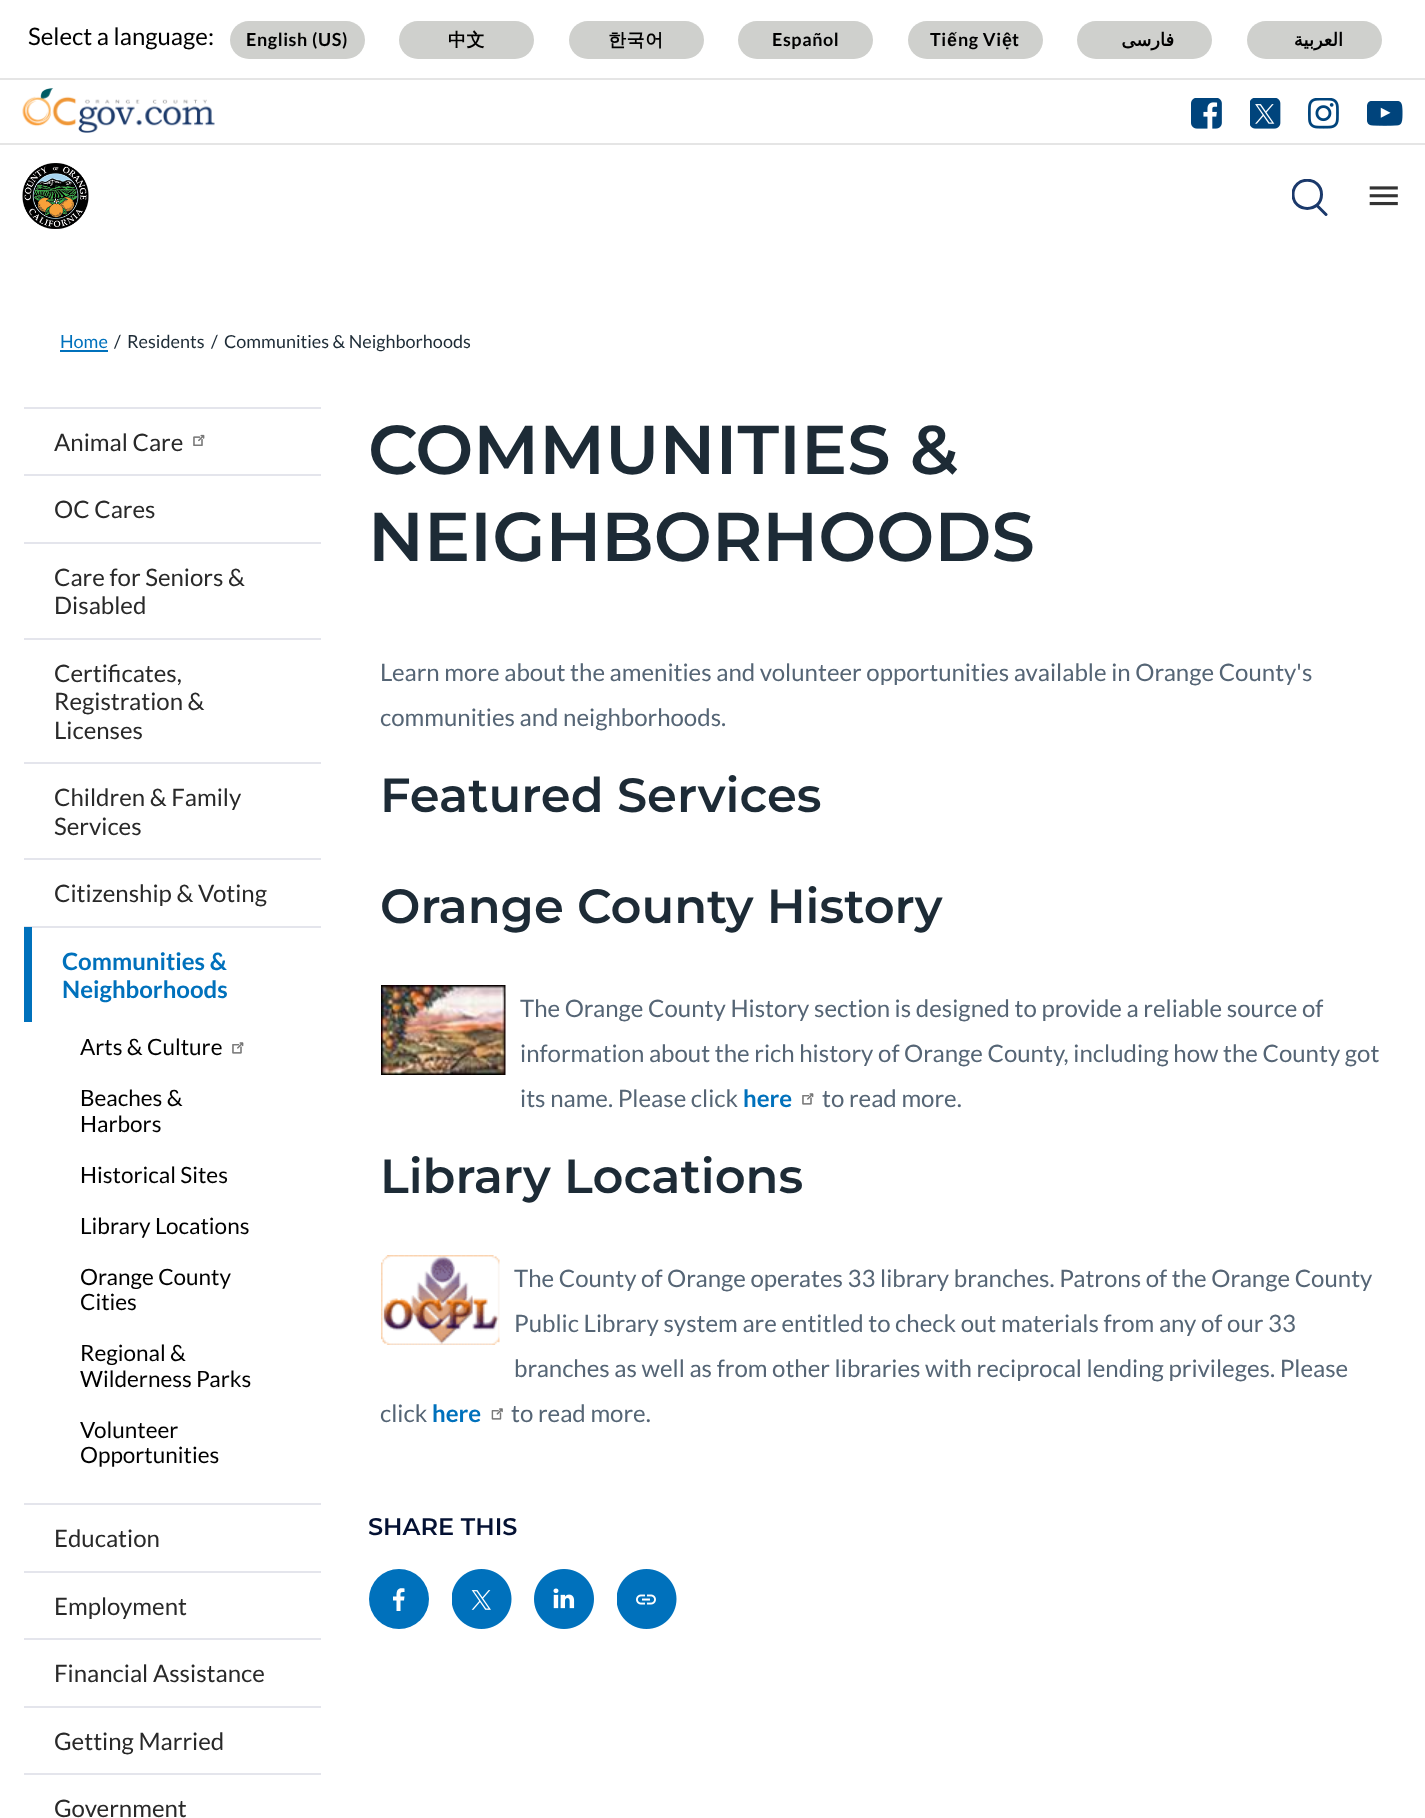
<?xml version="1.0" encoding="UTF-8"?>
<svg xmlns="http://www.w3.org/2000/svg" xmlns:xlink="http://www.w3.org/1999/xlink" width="1425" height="1818">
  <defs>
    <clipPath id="clip1"><rect x="1292" y="179" width="36" height="37" /></clipPath>
  </defs>
  <rect width="100%" height="100%" fill="#ffffff" />
  <rect x="230" y="21" width="135" height="38" rx="19" fill="#cfd0cd" />
  <rect x="399" y="21" width="135" height="38" rx="19" fill="#cfd0cd" />
  <rect x="569" y="21" width="135" height="38" rx="19" fill="#cfd0cd" />
  <rect x="738" y="21" width="135" height="38" rx="19" fill="#cfd0cd" />
  <rect x="908" y="21" width="135" height="38" rx="19" fill="#cfd0cd" />
  <rect x="1077" y="21" width="135" height="38" rx="19" fill="#cfd0cd" />
  <rect x="1247" y="21" width="135" height="38" rx="19" fill="#cfd0cd" />
  <rect y="78" width="1425" height="2" fill="#e5e5e5" />
  <rect y="143" width="1425" height="2" fill="#e5e5e5" />
  <image x="22" y="88" width="193" height="45" xlink:href="image1.png" />
  <image x="1191" y="98" width="31" height="31" xlink:href="image2.png" />
  <image x="1250" y="98" width="31" height="31" xlink:href="image3.png" />
  <image x="1308" y="98" width="31" height="31" xlink:href="image4.png" />
  <image x="1367" y="101" width="36" height="25" xlink:href="image5.png" />
  <image x="22" y="163" width="67" height="66" xlink:href="image6.png" />
  <g clip-path="url(#clip1)">
    <path d="M 1293 194.5 c 0 -19 28.5 -19 28.5 0 c 0 18.5 -28.5 18.5 -28.5 0 z m 24 11 l 9 9" fill="none" stroke="#1b396b" stroke-width="3" stroke-linecap="round" stroke-linejoin="round" />
  </g>
  <image x="1369" y="186" width="29" height="20" xlink:href="image7.png" />
  <rect x="60" y="350" width="48" height="2" fill="#0071bc" />
  <rect x="24" y="407" width="297" height="2" fill="#e4e5ec" />
  <image x="193" y="434" width="12" height="12" xlink:href="image8.png" />
  <rect x="24" y="474" width="297" height="2" fill="#e4e5ec" />
  <rect x="24" y="542" width="297" height="2" fill="#e4e5ec" />
  <rect x="24" y="638" width="297" height="2" fill="#e4e5ec" />
  <rect x="24" y="762" width="297" height="2" fill="#e4e5ec" />
  <rect x="24" y="858" width="297" height="2" fill="#e4e5ec" />
  <rect x="24" y="926" width="297" height="2" fill="#e4e5ec" />
  <rect x="24" y="927" width="8" height="95" fill="#0071bc" />
  <image x="232" y="1042" width="12" height="12" xlink:href="image9.png" />
  <rect x="24" y="1503" width="297" height="2" fill="#e4e5ec" />
  <rect x="24" y="1571" width="297" height="2" fill="#e4e5ec" />
  <rect x="24" y="1638" width="297" height="2" fill="#e4e5ec" />
  <rect x="24" y="1706" width="297" height="2" fill="#e4e5ec" />
  <rect x="24" y="1773" width="297" height="2" fill="#e4e5ec" />
  <image x="381" y="985" width="125" height="90" xlink:href="image10.png" />
  <image x="802" y="1093" width="12" height="12" xlink:href="image9.png" />
  <image x="381" y="1255" width="119" height="90" xlink:href="image11.png" />
  <image x="491" y="1408" width="12" height="12" xlink:href="image12.png" />
  <circle cx="399" cy="1599" r="30" fill="#0071bc" />
  <path d="M 400.5 1611 v -10.5 h 3.5 l 0.5 -4 h -4 c 0 -4 -0.5 -4.5 4 -4.5 v -3.5 c -7 -1 -8 1.5 -8 8 h -3.5 v 4 h 3.5 v 10.5 z" fill="#ffffff" />
  <image x="452" y="1569" width="60" height="60" xlink:href="image13.png" />
  <image x="534" y="1569" width="60" height="60" xlink:href="image14.png" />
  <image x="617" y="1569" width="60" height="60" xlink:href="image15.png" />
  <text x="28" y="45" style="font-family: Lato; font-size: 24px; fill: #000000">Select a language:</text>
  <text x="246" y="46" style="font-family: Lato; font-size: 18px; font-weight: bold; letter-spacing: 0.6px; fill: #000000">English (US)</text>
  <text x="448" y="46" style="font-family: WenQuanYi Zen Hei; font-size: 18px; font-weight: bold; letter-spacing: 0.6px; fill: #000000">中文</text>
  <text x="608" y="46" style="font-family: WenQuanYi Zen Hei; font-size: 18px; font-weight: bold; letter-spacing: 0.6px; fill: #000000">한국어</text>
  <text x="772" y="46" style="font-family: Lato; font-size: 18px; font-weight: bold; letter-spacing: 0.6px; fill: #000000">Español</text>
  <text x="930" y="46" style="font-family: Lato; font-size: 18px; font-weight: bold; letter-spacing: 0.6px; fill: #000000">Ti</text>
  <text x="947" y="46" style="font-family: Liberation Sans; font-size: 18px; font-weight: bold; letter-spacing: 0.6px; fill: #000000">ế</text>
  <text x="958" y="46" style="font-family: Lato; font-size: 18px; font-weight: bold; letter-spacing: 0.6px; fill: #000000">ng Vi</text>
  <text x="1002" y="46" style="font-family: Liberation Sans; font-size: 18px; font-weight: bold; letter-spacing: 0.6px; fill: #000000">ệ</text>
  <text x="1012" y="46" style="font-family: Lato; font-size: 18px; font-weight: bold; letter-spacing: 0.6px; fill: #000000">t</text>
  <text x="1174" y="46" style="font-family: DejaVu Sans; font-size: 18px; font-weight: bold; letter-spacing: 0.6px; direction: rtl; fill: #000000">فارسی</text>
  <text x="1343" y="46" style="font-family: DejaVu Sans; font-size: 18px; font-weight: bold; letter-spacing: 0.6px; direction: rtl; fill: #000000">العربية</text>
  <text x="60" y="348" style="font-family: Lato; font-size: 18px; fill: #0071bc">Home</text>
  <text x="114" y="348" style="font-family: Lato; font-size: 18px; fill: #1d2b36">/</text>
  <text x="127" y="348" style="font-family: Lato; font-size: 18px; fill: #1d2b36">Residents</text>
  <text x="211" y="348" style="font-family: Lato; font-size: 18px; fill: #1d2b36">/</text>
  <text x="224" y="348" style="font-family: Lato; font-size: 18px; fill: #1d2b36">Communities &amp; Neighborhoods</text>
  <text x="54" y="451" style="font-family: Lato; font-size: 24px; fill: #292929">Animal Care</text>
  <text x="54" y="518" style="font-family: Lato; font-size: 24px; fill: #292929">OC Cares</text>
  <text x="54" y="586" style="font-family: Lato; font-size: 24px; fill: #292929">Care for Seniors &amp;</text>
  <text x="54" y="614" style="font-family: Lato; font-size: 24px; fill: #292929">Disabled</text>
  <text x="54" y="682" style="font-family: Lato; font-size: 24px; fill: #292929">Certificates,</text>
  <text x="54" y="710" style="font-family: Lato; font-size: 24px; fill: #292929">Registration &amp;</text>
  <text x="54" y="739" style="font-family: Lato; font-size: 24px; fill: #292929">Licenses</text>
  <text x="54" y="806" style="font-family: Lato; font-size: 24px; fill: #292929">Children &amp; Family</text>
  <text x="54" y="835" style="font-family: Lato; font-size: 24px; fill: #292929">Services</text>
  <text x="54" y="902" style="font-family: Lato; font-size: 24px; fill: #292929">Citizenship &amp; Voting</text>
  <text x="62" y="970" style="font-family: Lato; font-size: 24px; font-weight: bold; fill: #0071bc">Communities &amp;</text>
  <text x="62" y="998" style="font-family: Lato; font-size: 24px; font-weight: bold; fill: #0071bc">Neighborhoods</text>
  <text x="80" y="1055" style="font-family: Lato; font-size: 22.5px; fill: #000000">Arts &amp; Culture</text>
  <text x="80" y="1106" style="font-family: Lato; font-size: 22.5px; fill: #000000">Beaches &amp;</text>
  <text x="80" y="1132" style="font-family: Lato; font-size: 22.5px; fill: #000000">Harbors</text>
  <text x="80" y="1183" style="font-family: Lato; font-size: 22.5px; fill: #000000">Historical Sites</text>
  <text x="80" y="1234" style="font-family: Lato; font-size: 22.5px; fill: #000000">Library Locations</text>
  <text x="80" y="1285" style="font-family: Lato; font-size: 22.5px; fill: #000000">Orange County</text>
  <text x="80" y="1310" style="font-family: Lato; font-size: 22.5px; fill: #000000">Cities</text>
  <text x="80" y="1361" style="font-family: Lato; font-size: 22.5px; fill: #000000">Regional &amp;</text>
  <text x="80" y="1387" style="font-family: Lato; font-size: 22.5px; fill: #000000">Wilderness Parks</text>
  <text x="80" y="1438" style="font-family: Lato; font-size: 22.5px; fill: #000000">Volunteer</text>
  <text x="80" y="1463" style="font-family: Lato; font-size: 22.5px; fill: #000000">Opportunities</text>
  <text x="54" y="1547" style="font-family: Lato; font-size: 24px; fill: #292929">Education</text>
  <text x="54" y="1615" style="font-family: Lato; font-size: 24px; fill: #292929">Employment</text>
  <text x="54" y="1682" style="font-family: Lato; font-size: 24px; fill: #292929">Financial Assistance</text>
  <text x="54" y="1750" style="font-family: Lato; font-size: 24px; fill: #292929">Getting Married</text>
  <text x="54" y="1817" style="font-family: Lato; font-size: 24px; fill: #292929">Government</text>
  <text x="368" y="474" style="font-family: Montserrat; font-size: 69px; font-weight: 600; fill: #1d2b36">COMMUNITIES &amp;</text>
  <text x="368" y="561" style="font-family: Montserrat; font-size: 69px; font-weight: 600; fill: #1d2b36">NEIGHBORHOODS</text>
  <text x="380" y="681" style="font-family: Lato; font-size: 24px; fill: #556575">Learn more about the amenities and volunteer opportunities available in Orange County's</text>
  <text x="380" y="726" style="font-family: Lato; font-size: 24px; fill: #556575">communities and neighborhoods.</text>
  <text x="380" y="812" style="font-family: Montserrat; font-size: 48px; font-weight: 600; fill: #1d2b36">Featured Services</text>
  <text x="380" y="923" style="font-family: Montserrat; font-size: 48px; font-weight: 600; fill: #1d2b36">Orange County History</text>
  <text x="520" y="1017" style="font-family: Lato; font-size: 24px; fill: #556575">The Orange County History section is designed to provide a reliable source of</text>
  <text x="520" y="1062" style="font-family: Lato; font-size: 24px; fill: #556575">information about the rich history of Orange County, including how the County got</text>
  <text x="520" y="1107" style="font-family: Lato; font-size: 24px; fill: #556575">its name. Please click</text>
  <text x="743" y="1107" style="font-family: Lato; font-size: 24px; font-weight: bold; fill: #0071bc">here</text>
  <text x="822" y="1107" style="font-family: Lato; font-size: 24px; fill: #556575">to read more.</text>
  <text x="380" y="1193" style="font-family: Montserrat; font-size: 48px; font-weight: 600; fill: #1d2b36">Library Locations</text>
  <text x="514" y="1287" style="font-family: Lato; font-size: 24px; fill: #556575">The County of Orange operates 33 library branches. Patrons of the Orange County</text>
  <text x="514" y="1332" style="font-family: Lato; font-size: 24px; fill: #556575">Public Library system are entitled to check out materials from any of our 33</text>
  <text x="514" y="1377" style="font-family: Lato; font-size: 24px; fill: #556575">branches as well as from other libraries with reciprocal lending privileges. Please</text>
  <text x="380" y="1422" style="font-family: Lato; font-size: 24px; fill: #556575">click</text>
  <text x="432" y="1422" style="font-family: Lato; font-size: 24px; font-weight: bold; fill: #0071bc">here</text>
  <text x="511" y="1422" style="font-family: Lato; font-size: 24px; fill: #556575">to read more.</text>
  <text x="368" y="1535" style="font-family: Montserrat; font-size: 24px; font-weight: 600; fill: #041133">SHARE THIS</text>
</svg>
